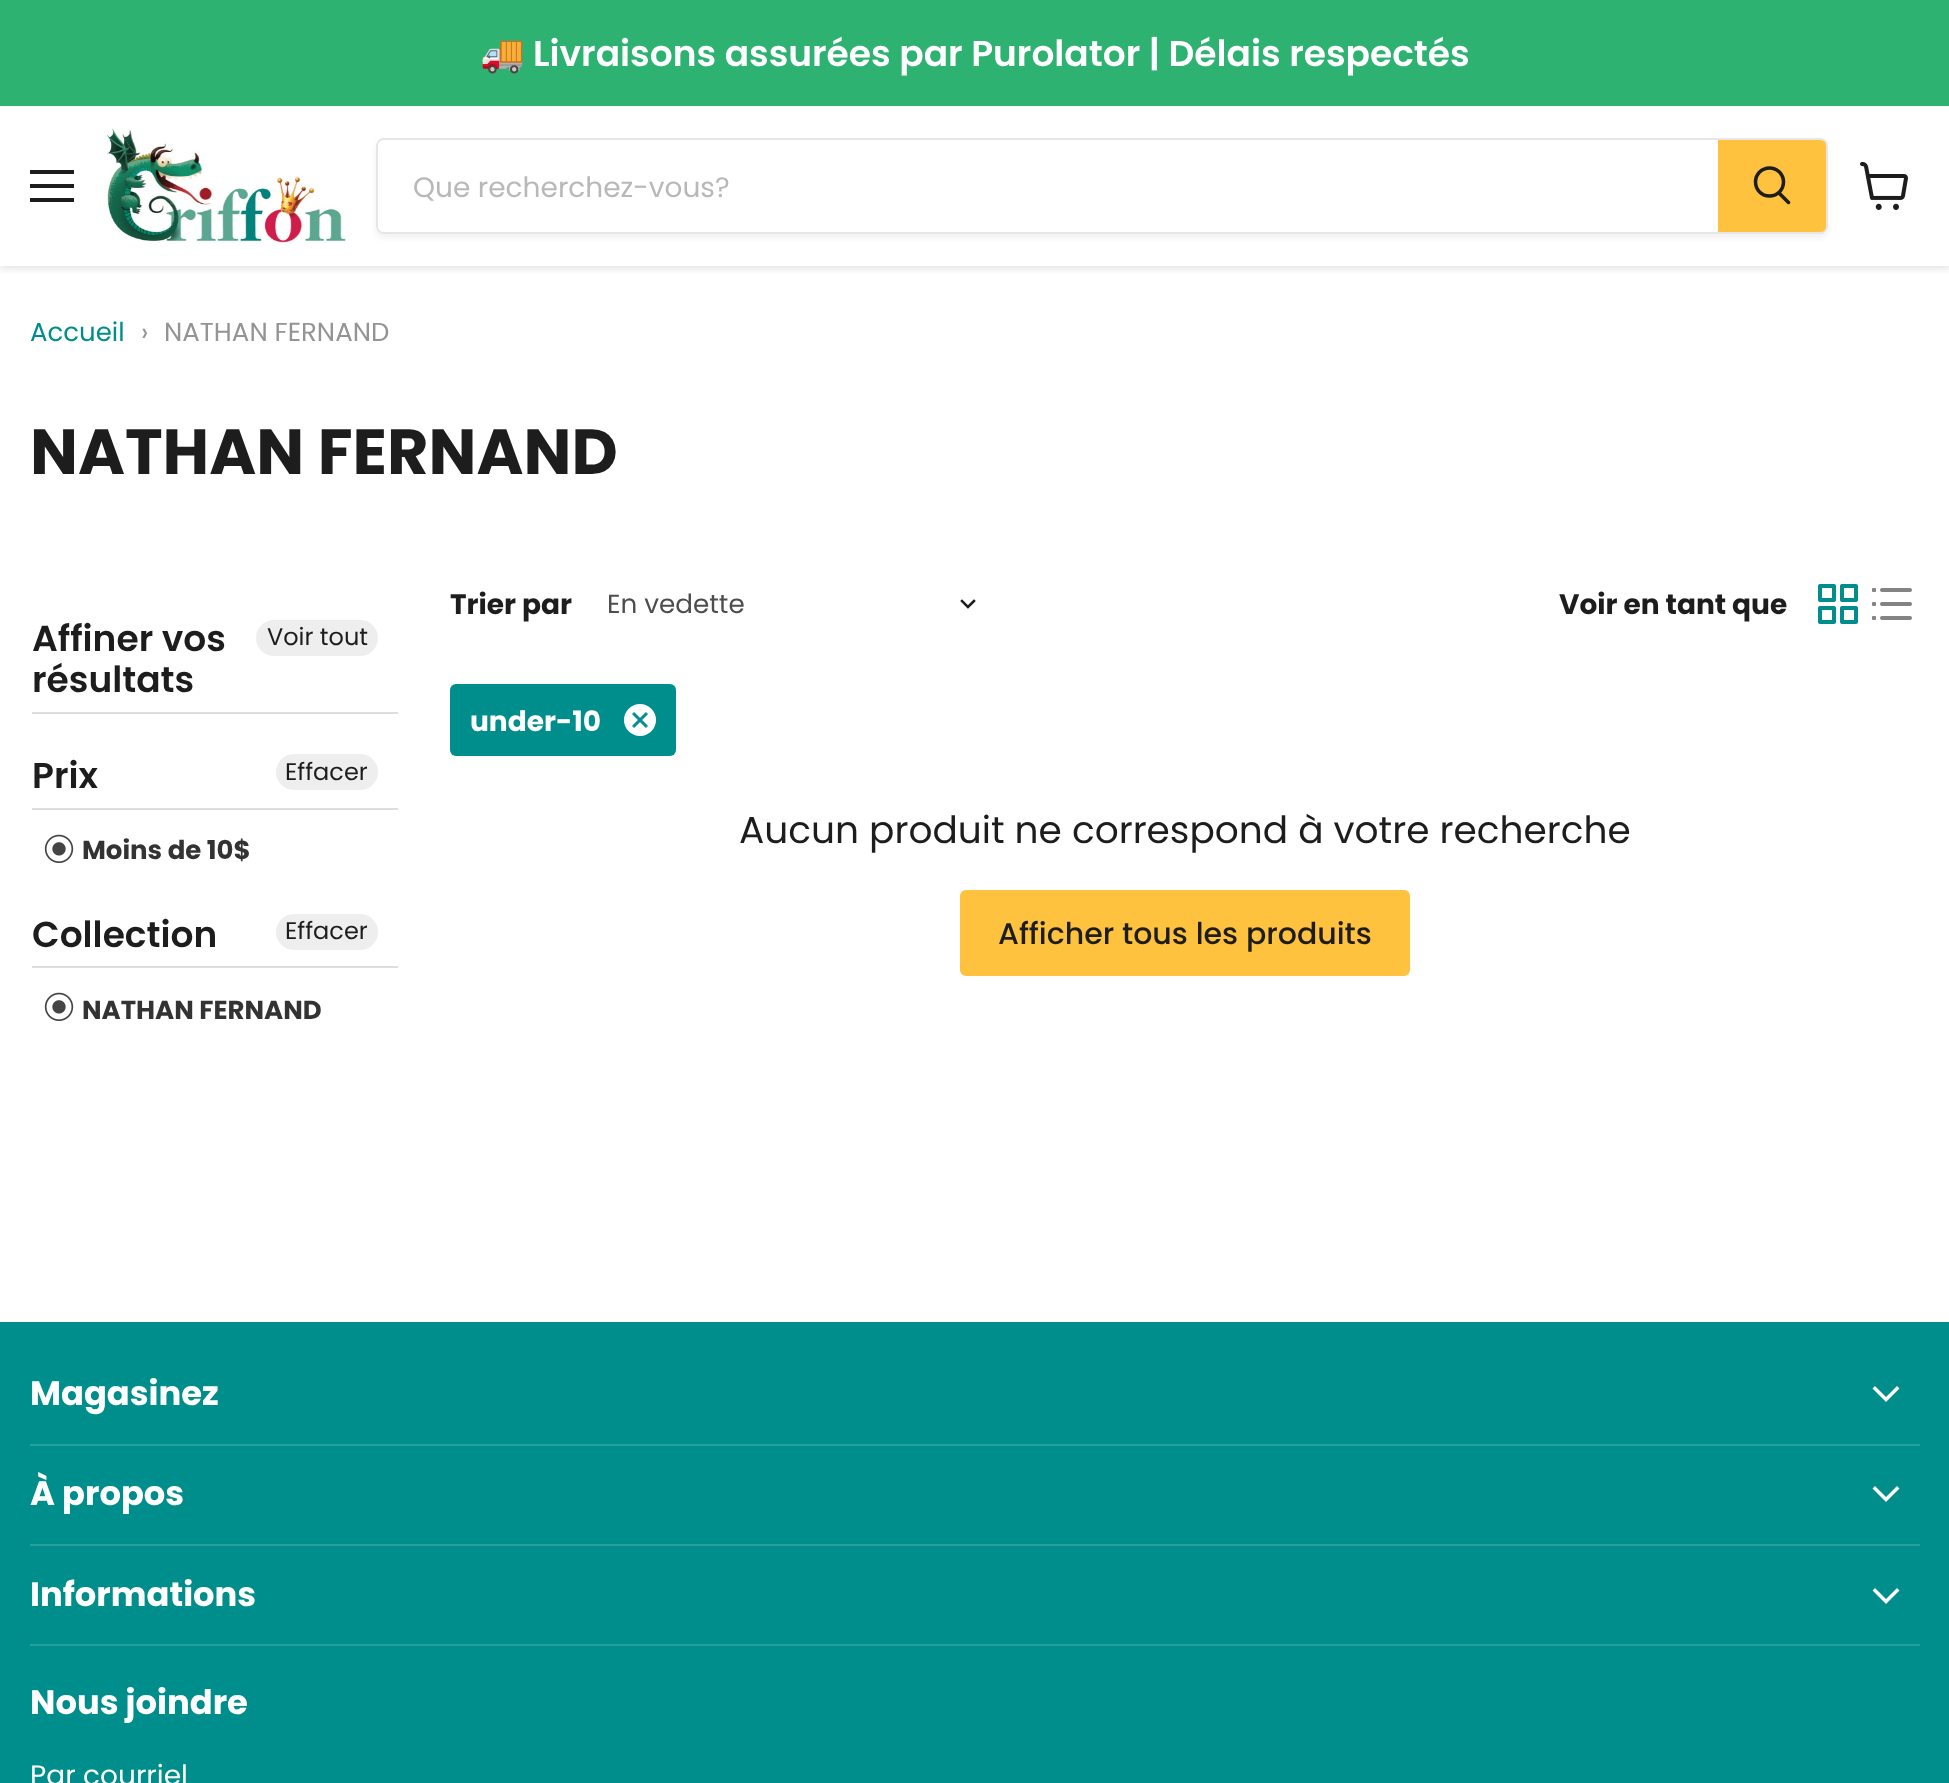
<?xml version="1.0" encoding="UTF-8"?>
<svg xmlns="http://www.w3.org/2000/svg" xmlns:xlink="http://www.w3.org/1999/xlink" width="1949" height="1783">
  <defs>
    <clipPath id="clip1"><rect x="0" y="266" width="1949" height="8" /></clipPath>
    <clipPath id="clip2"><path d="M 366 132 h 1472 v 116 h -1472 z m 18 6 h 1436 c 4.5 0 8 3.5 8 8 v 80 c 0 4.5 -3.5 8 -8 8 h -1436 c -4.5 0 -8 -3.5 -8 -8 v -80 c 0 -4.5 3.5 -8 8 -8 z" clip-rule="evenodd" /></clipPath>
  </defs>
  <rect width="100%" height="100%" fill="#ffffff" />
  <g clip-path="url(#clip1)">
    <rect y="108" width="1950" height="160" fill="#808080" fill-opacity="0.25" filter="blur(4px)" />
  </g>
  <rect width="1949" height="106" fill="#2eb271" />
  <rect x="30" y="170" width="44" height="4" fill="#1d1d1d" />
  <rect x="30" y="184" width="44" height="4" fill="#1d1d1d" />
  <rect x="30" y="198" width="44" height="4" fill="#1d1d1d" />
  <image x="104" y="128" width="242" height="117" xlink:href="image1.png" />
  <g clip-path="url(#clip2)">
    <rect x="376" y="142" width="1452" height="96" rx="8" fill="#808080" fill-opacity="0.11" filter="blur(3px)" />
  </g>
  <rect x="377" y="139" width="1450" height="94" rx="7" fill="none" stroke="#808080" stroke-opacity="0.2" stroke-width="2" />
  <path d="M 384 140 h 1334 v 92 h -1334 c -3.5 0 -6 -2.5 -6 -6 v -80 c 0 -3.5 2.5 -6 6 -6 z" fill="#ffffff" />
  <path d="M 1719 141 h 101 c 3 0 5 2 5 5 v 80 c 0 3 -2 5 -5 5 h -101 z" fill="#fec23e" stroke="#fec23e" stroke-width="2" />
  <path d="M 1788.5 202.5 l -9.5 -9.5" fill="none" stroke="#1d1d1d" stroke-width="3.5" stroke-linecap="round" />
  <circle cx="1769.5" cy="182" r="14" fill="none" stroke="#1d1d1d" stroke-width="3.5" />
  <image x="1860" y="162" width="48" height="48" xlink:href="image2.png" />
  <rect x="32" y="712" width="366" height="2" fill="#dddddd" />
  <rect x="256" y="620" width="122" height="36" rx="18" fill="#eeeeee" />
  <rect x="32" y="808" width="366" height="2" fill="#dddddd" />
  <rect x="276" y="754" width="102" height="36" rx="18" fill="#eeeeee" />
  <image x="44" y="834" width="30" height="29" xlink:href="image3.png" />
  <rect x="32" y="966" width="366" height="2" fill="#dddddd" />
  <rect x="276" y="914" width="102" height="36" rx="18" fill="#eeeeee" />
  <image x="44" y="992" width="30" height="29" xlink:href="image3.png" />
  <path d="M 968 607 l 6 -6 m -6 6 l -6 -6" fill="none" stroke="#1d1d1d" stroke-width="2.5" stroke-linecap="square" />
  <image x="1818" y="584" width="40" height="40" xlink:href="image4.png" />
  <image x="1872" y="588" width="40" height="32" xlink:href="image5.png" />
  <rect x="450" y="684" width="226" height="72" rx="6" fill="#008e8c" />
  <circle cx="640" cy="720" r="16" fill="#ffffff" />
  <image x="632" y="712" width="16" height="16" xlink:href="image6.png" />
  <rect x="961" y="891" width="448" height="84" rx="5" fill="#fec23e" stroke="#fec23e" stroke-width="2" />
  <rect y="1322" width="1949" height="461" fill="#008e8c" />
  <rect x="30" y="1444" width="1890" height="2" fill="#269f9d" />
  <path d="M 1886 1399.5 l 11 -11 m -11 11 l -11 -11" fill="none" stroke="#ffffff" stroke-width="3.5" stroke-linecap="square" />
  <rect x="30" y="1544" width="1890" height="2" fill="#269f9d" />
  <path d="M 1886 1499.5 l 11 -11 m -11 11 l -11 -11" fill="none" stroke="#ffffff" stroke-width="3.5" stroke-linecap="square" />
  <rect x="30" y="1644" width="1890" height="2" fill="#269f9d" />
  <path d="M 1886 1601.5 l 11 -11 m -11 11 l -11 -11" fill="none" stroke="#ffffff" stroke-width="3.5" stroke-linecap="square" />
  <text x="480" y="66" style="font-family: Noto Color Emoji; font-size: 36px; font-weight: bold; fill: #ffffff">🚚</text>
  <text x="533" y="66" style="font-family: Poppins; font-size: 36px; font-weight: 600; fill: #ffffff">Livraisons assurées par Purolator | Délais respectés</text>
  <text x="413" y="197" style="font-family: Poppins; font-size: 28px; fill: #b8b8b8">Que recherchez-vous?</text>
  <text x="30" y="341" style="font-family: Poppins; font-size: 26px; fill: #008e8c">Accueil</text>
  <text x="141" y="341" style="font-family: Poppins; font-size: 26px; fill: #949494">›</text>
  <text x="164" y="341" style="font-family: Poppins; font-size: 26px; fill: #949494">NATHAN FERNAND</text>
  <text x="30" y="474" style="font-family: Poppins; font-size: 63.75px; font-weight: bold; fill: #1d1d1d">NATHAN FERNAND</text>
  <text x="32" y="651" style="font-family: Poppins; font-size: 36px; font-weight: 600; fill: #1d1d1d">Affiner vos</text>
  <text x="32" y="692" style="font-family: Poppins; font-size: 36px; font-weight: 600; fill: #1d1d1d">résultats</text>
  <text x="267" y="645" style="font-family: Poppins; font-size: 24px; fill: #1d1d1d">Voir tout</text>
  <text x="32" y="788" style="font-family: Poppins; font-size: 36px; font-weight: 600; fill: #1d1d1d">Prix</text>
  <text x="285" y="780" style="font-family: Poppins; font-size: 24px; fill: #1d1d1d">Effacer</text>
  <text x="82" y="859" style="font-family: Poppins; font-size: 26px; font-weight: bold; fill: #333333">Moins de 10$</text>
  <text x="32" y="947" style="font-family: Poppins; font-size: 36px; font-weight: 600; fill: #1d1d1d">Collection</text>
  <text x="285" y="939" style="font-family: Poppins; font-size: 24px; fill: #1d1d1d">Effacer</text>
  <text x="82" y="1019" style="font-family: Poppins; font-size: 26px; font-weight: bold; fill: #333333">NATHAN FERNAND</text>
  <text x="450" y="614" style="font-family: Poppins; font-size: 28px; font-weight: bold; fill: #1d1d1d">Trier par</text>
  <text x="607" y="613" style="font-family: Poppins; font-size: 26.25px; fill: #4d4d4d">En vedette</text>
  <text x="1559" y="614" style="font-family: Poppins; font-size: 28px; font-weight: bold; fill: #1d1d1d">Voir en tant que</text>
  <text x="470" y="731" style="font-family: Poppins; font-size: 28px; font-weight: bold; fill: #ffffff">under-10</text>
  <text x="739" y="843" style="font-family: Poppins; font-size: 37.5px; fill: #1d1d1d">Aucun produit ne correspond à votre recherche</text>
  <text x="998" y="944" style="font-family: Poppins; font-size: 30px; font-weight: 500; fill: #1d1d1d">Afficher tous les produits</text>
  <text x="30" y="1405" style="font-family: Poppins; font-size: 33.75px; font-weight: bold; fill: #ffffff">Magasinez</text>
  <text x="30" y="1505" style="font-family: Poppins; font-size: 33.75px; font-weight: bold; fill: #ffffff">À propos</text>
  <text x="30" y="1606" style="font-family: Poppins; font-size: 33.75px; font-weight: bold; fill: #ffffff">Informations</text>
  <text x="30" y="1714" style="font-family: Poppins; font-size: 33.75px; font-weight: bold; fill: #ffffff">Nous joindre</text>
  <text x="30" y="1785" style="font-family: Poppins; font-size: 28px; fill: #ffffff">Par courriel</text>
</svg>
